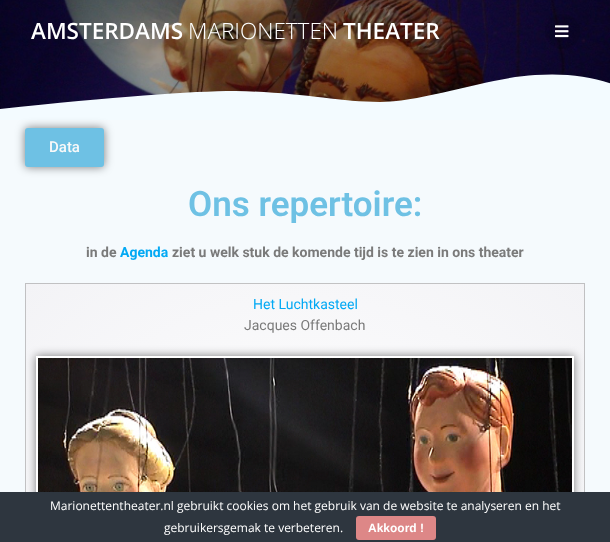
<?xml version="1.0" encoding="UTF-8"?>
<svg xmlns="http://www.w3.org/2000/svg" xmlns:xlink="http://www.w3.org/1999/xlink" width="610" height="542">
  <defs>
    <radialGradient id="g1" gradientUnits="userSpaceOnUse" cx="0" cy="0" r="1" gradientTransform="matrix(395 0 0 353 -253 35)"><stop offset="0" stop-color="#ffffff" /><stop offset="1" stop-color="#f3f3f7" /></radialGradient>
    <radialGradient id="g2" gradientUnits="userSpaceOnUse" cx="0" cy="0" r="1" gradientTransform="matrix(395 0 0 353 305 35)"><stop offset="0" stop-color="#ffffff" /><stop offset="1" stop-color="#f3f3f7" /></radialGradient>
    <radialGradient id="g3" gradientUnits="userSpaceOnUse" cx="0" cy="0" r="1" gradientTransform="matrix(395 0 0 353 863 35)"><stop offset="0" stop-color="#ffffff" /><stop offset="1" stop-color="#f3f3f7" /></radialGradient>
    <radialGradient id="g4" gradientUnits="userSpaceOnUse" cx="0" cy="0" r="1" gradientTransform="matrix(395 0 0 353 -253 534)"><stop offset="0" stop-color="#ffffff" /><stop offset="1" stop-color="#f3f3f7" /></radialGradient>
    <radialGradient id="g5" gradientUnits="userSpaceOnUse" cx="0" cy="0" r="1" gradientTransform="matrix(395 0 0 353 305 534)"><stop offset="0" stop-color="#ffffff" /><stop offset="1" stop-color="#f3f3f6" /></radialGradient>
    <radialGradient id="g6" gradientUnits="userSpaceOnUse" cx="0" cy="0" r="1" gradientTransform="matrix(395 0 0 353 863 534)"><stop offset="0" stop-color="#ffffff" /><stop offset="1" stop-color="#f3f3f7" /></radialGradient>
  </defs>
  <rect width="100%" height="100%" fill="#ffffff" />
  <image x="0" y="0" width="610" height="109" xlink:href="image2.png" />
  <circle cx="562.5" cy="31.5" r="17.5" fill="#000000" fill-opacity="0.1" />
  <image x="555" y="25" width="14" height="13" xlink:href="image1.png" />
  <image x="222" y="0" width="166" height="97" xlink:href="image3.png" />
  <path d="M -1 109 c 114 -12 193 -18 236 -18 c 65 1 103 11 145 11 c 42 0 112 -25 155 -27 c 29 -2 55 1 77 9 v 36 l -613 1 z" fill="#f3fbff" />
  <rect y="120" width="610" height="372" fill="#f5fafd" />
  <rect x="25" y="128" width="79" height="39" rx="3" fill="#000000" fill-opacity="0.5" filter="blur(5px)" />
  <rect x="25" y="128" width="79" height="39" rx="3" fill="#6ec1e4" />
  <rect x="25" y="283" width="1" height="1" fill="url(#g1)" />
  <rect x="26" y="283" width="558" height="1" fill="url(#g2)" />
  <rect x="584" y="283" width="1" height="1" fill="url(#g3)" />
  <rect x="25" y="284" width="1" height="208" fill="url(#g4)" />
  <rect x="26" y="284" width="558" height="208" fill="url(#g5)" />
  <rect x="584" y="284" width="1" height="208" fill="url(#g6)" />
  <rect x="25.5" y="283.5" width="559" height="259" fill="none" stroke="#7a7a7a" stroke-opacity="0.42" />
  <rect x="36" y="356" width="538" height="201" fill="#000000" fill-opacity="0.5" filter="blur(5px)" />
  <rect x="37" y="357" width="536" height="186" fill="none" stroke="#ffffff" stroke-width="2" />
  <image x="38" y="358" width="534" height="134" xlink:href="image4.png" />
  <rect y="492" width="610" height="50" fill="#2e363f" />
  <rect x="356" y="516" width="80" height="24" rx="3" fill="#dd8787" />
  <text x="31" y="39" style="font-family: Open Sans; font-size: 22.5px; font-weight: 600; fill: #ffffff">AMSTERDAMS</text>
  <text x="188" y="39" style="font-family: Open Sans; font-size: 22.5px; font-weight: 300; fill: #ffffff">MARIONETTEN</text>
  <text x="343" y="39" style="font-family: Open Sans; font-size: 22.5px; font-weight: 600; fill: #ffffff">THEATER</text>
  <text x="49" y="152" style="font-family: Roboto; font-size: 15px; font-weight: 500; fill: #f9f9f9">Data</text>
  <text x="188" y="216" style="font-family: Roboto; font-size: 35px; font-weight: 600; fill: #6ec1e4">Ons repertoire:</text>
  <text x="86" y="257" style="font-family: Roboto; font-size: 14px; font-weight: bold; fill: #7a7a7a">in de</text>
  <text x="120" y="257" style="font-family: Roboto; font-size: 14px; font-weight: bold; fill: #03a9f4">Agenda</text>
  <text x="172" y="257" style="font-family: Roboto; font-size: 14px; font-weight: bold; fill: #7a7a7a">ziet u welk stuk de komende tijd is te zien in ons theater</text>
  <text x="253" y="309" style="font-family: Roboto; font-size: 14px; fill: #03a9f4">Het Luchtkasteel</text>
  <text x="244" y="330" style="font-family: Roboto; font-size: 14px; fill: #7a7a7a">Jacques Offenbach</text>
  <text x="50" y="510" style="font-family: Open Sans; font-size: 12px; fill: #ffffff">Marionettentheater.nl gebruikt cookies om het gebruik van de website te analyseren en het</text>
  <text x="164" y="532" style="font-family: Open Sans; font-size: 12px; fill: #ffffff">gebruikersgemak te verbeteren.</text>
  <text x="368" y="532" style="font-family: Liberation Sans; font-size: 12px; font-weight: bold; fill: #ffffff">Akkoord !</text>
</svg>
